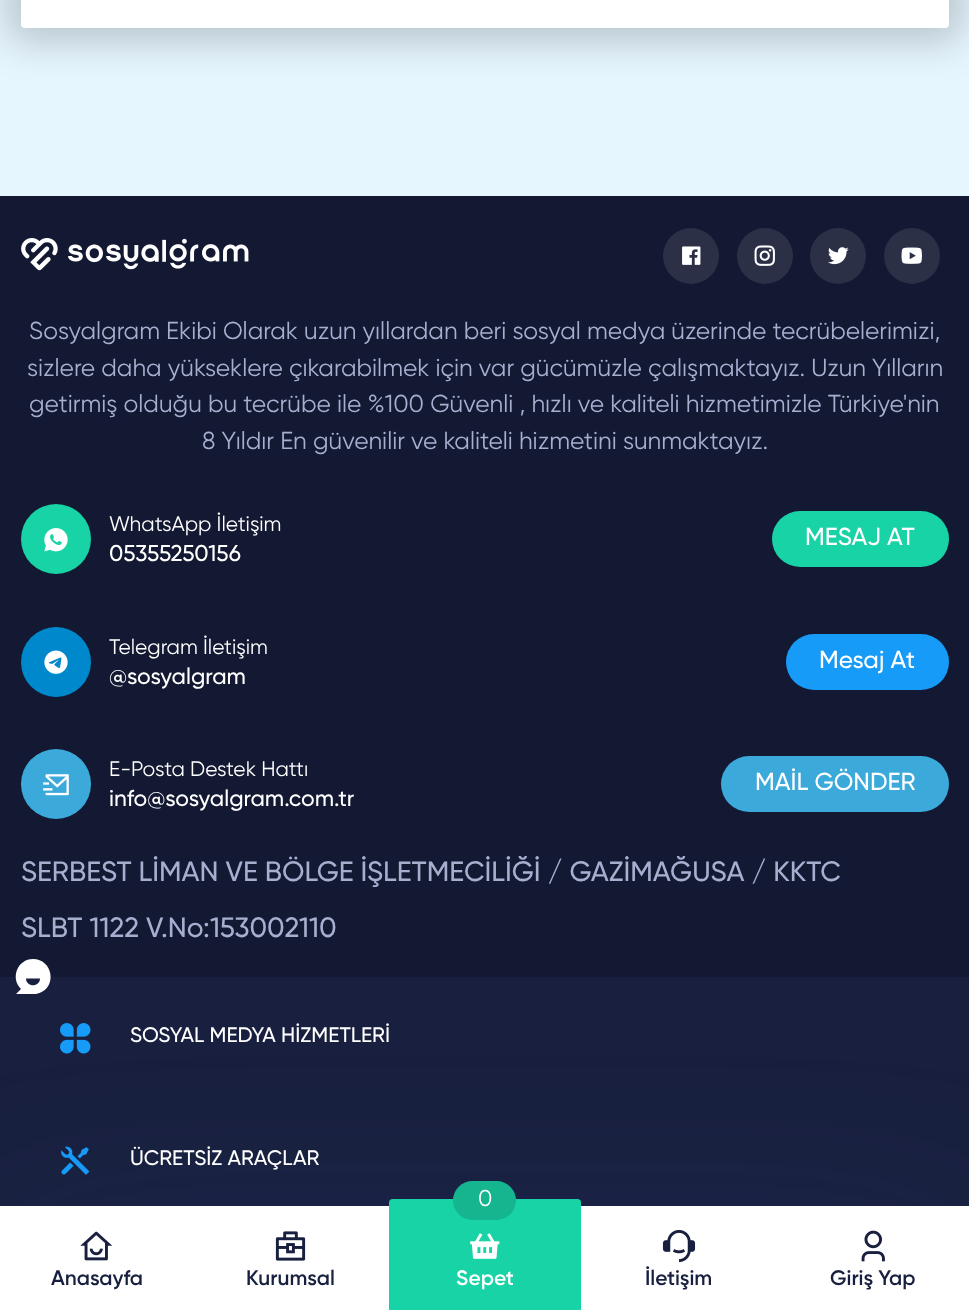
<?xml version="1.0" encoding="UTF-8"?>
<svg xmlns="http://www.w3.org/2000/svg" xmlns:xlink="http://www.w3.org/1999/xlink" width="969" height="1310">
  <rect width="100%" height="100%" fill="#e6f6ff" />
  <rect x="7" y="-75" width="956" height="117" rx="18" fill="#000000" fill-opacity="0.2" filter="blur(19px)" />
  <rect x="21" y="-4" width="928" height="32" rx="4" fill="#ffffff" />
  <rect y="977" width="969" height="229" fill="#19203f" />
  <rect y="196" width="969" height="781" fill="#131932" />
  <image x="21" y="238" width="228" height="33" xlink:href="image1.png" />
  <circle cx="691" cy="256" r="28" fill="#2b3047" />
  <image x="682" y="246" width="19" height="19" xlink:href="image2.png" />
  <circle cx="765" cy="256" r="28" fill="#2b3047" />
  <image x="754" y="245" width="21" height="21" xlink:href="image3.png" />
  <circle cx="838" cy="256" r="28" fill="#2b3047" />
  <image x="828" y="247" width="21" height="18" xlink:href="image4.png" />
  <circle cx="912" cy="256" r="28" fill="#2b3047" />
  <image x="901" y="247" width="21" height="17" xlink:href="image5.png" />
  <circle cx="56" cy="539" r="35" fill="#18d3a6" />
  <image x="44" y="528" width="24" height="24" xlink:href="image6.png" />
  <rect x="772" y="511" width="177" height="56" rx="28" fill="#18d3a6" />
  <circle cx="56" cy="662" r="35" fill="#0088cc" />
  <image x="44" y="650" width="24" height="24" xlink:href="image7.png" />
  <rect x="786" y="634" width="163" height="56" rx="28" fill="#179bf9" />
  <circle cx="56" cy="784" r="35" fill="#3ba9da" />
  <image x="43" y="774" width="26" height="22" xlink:href="image8.png" />
  <rect x="721" y="756" width="228" height="56" rx="28" fill="#3ba9da" />
  <image x="60" y="1023" width="31" height="31" xlink:href="image9.png" />
  <image x="61" y="1146" width="29" height="29" xlink:href="image10.png" />
  <rect y="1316" width="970" height="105" fill="#2855ac" fill-opacity="0.36" filter="blur(116.5px)" />
  <path d="M 33 959 c 19.5 0 24.5 27.5 6.5 34 c -4 1.5 -8 1 -12 1 h -11.5 l 5 -5 c -11 -11 -3.5 -30 12 -30 z m 7 19.5 h -14 c 0 9 14 9 14 0 z" fill="#ffffff" />
  <rect y="1206" width="969" height="104" fill="#ffffff" />
  <image x="80" y="1231" width="33" height="30" xlink:href="image11.png" />
  <image x="275" y="1231" width="31" height="30" xlink:href="image12.png" />
  <rect x="389" y="1206" width="192" height="104" fill="#18d3a6" />
  <path d="M 392.5 1199 h 185 c 2 0 3.5 1.5 3.5 3.5 v 3.5 h -192 v -3.5 c 0 -2 1.5 -3.5 3.5 -3.5 z" fill="#18d3a6" />
  <rect x="453" y="1181" width="63" height="39" rx="19.5" fill="#15b68f" />
  <image x="470" y="1233" width="30" height="26" xlink:href="image13.png" />
  <image x="662" y="1230" width="34" height="32" xlink:href="image14.png" />
  <image x="861" y="1230" width="24" height="32" xlink:href="image15.png" />
  <text x="29" y="339" style="font-family: Gilroy; font-size: 24.5px; fill: #a7afd0">Sosyalgram Ekibi Olarak uzun yıllardan beri sosyal medya üzerinde tecrübelerimizi,</text>
  <text x="27" y="376" style="font-family: Gilroy; font-size: 24.5px; fill: #a7afd0">sizlere daha yükseklere çıkarabilmek için var gücümüzle çalışmaktayız. Uzun Yılların</text>
  <text x="29" y="412" style="font-family: Gilroy; font-size: 24.5px; fill: #a7afd0">getirmiş olduğu bu tecrübe ile %100 Güvenli , hızlı ve kaliteli hizmetimizle Türkiye'nin</text>
  <text x="202" y="449" style="font-family: Gilroy; font-size: 24.5px; fill: #a7afd0">8 Yıldır En güvenilir ve kaliteli hizmetini sunmaktayız.</text>
  <text x="109" y="531" style="font-family: Gilroy; font-size: 21px; fill: #ffffff">WhatsApp İletişim</text>
  <text x="109" y="561" style="font-family: Gilroy; font-size: 22.75px; font-weight: 500; fill: #ffffff">05355250156</text>
  <text x="805" y="545" style="font-family: Gilroy; font-size: 24.5px; font-weight: 500; fill: #ffffff">MESAJ AT</text>
  <text x="109" y="654" style="font-family: Gilroy; font-size: 21px; fill: #ffffff">Telegram İletişim</text>
  <text x="109" y="684" style="font-family: Gilroy; font-size: 22.75px; font-weight: 500; fill: #ffffff">@sosyalgram</text>
  <text x="819" y="668" style="font-family: Gilroy; font-size: 24.5px; font-weight: 500; fill: #ffffff">Mesaj At</text>
  <text x="109" y="776" style="font-family: Gilroy; font-size: 21px; fill: #ffffff">E-Posta Destek Hattı</text>
  <text x="109" y="806" style="font-family: Gilroy; font-size: 22.75px; font-weight: 500; fill: #ffffff">info@sosyalgram.com.tr</text>
  <text x="755" y="790" style="font-family: Gilroy; font-size: 24.5px; font-weight: 500; fill: #ffffff">MAİL GÖNDER</text>
  <text x="21" y="881" style="font-family: Gilroy; font-size: 28px; font-weight: 500; fill: #a7afd0">SERBEST LİMAN VE BÖLGE İŞLETMECİLİĞİ / GAZİMAĞUSA / KKTC</text>
  <text x="21" y="937" style="font-family: Gilroy; font-size: 28px; font-weight: 500; fill: #a7afd0">SLBT 1122 V.No:153002110</text>
  <text x="130" y="1042" style="font-family: Gilroy; font-size: 21px; font-weight: 500; fill: #ffffff">SOSYAL MEDYA HİZMETLERİ</text>
  <text x="130" y="1165" style="font-family: Gilroy; font-size: 21px; font-weight: 500; fill: #ffffff">ÜCRETSİZ ARAÇLAR</text>
  <text x="51" y="1285" style="font-family: Gilroy; font-size: 21px; font-weight: 600; fill: #19203f">Anasayfa</text>
  <text x="246" y="1285" style="font-family: Gilroy; font-size: 21px; font-weight: 600; fill: #19203f">Kurumsal</text>
  <text x="478" y="1206" style="font-family: Gilroy; font-size: 22.75px; fill: #ffffff">0</text>
  <text x="456" y="1285" style="font-family: Gilroy; font-size: 21px; font-weight: 600; fill: #ffffff">Sepet</text>
  <text x="645" y="1285" style="font-family: Gilroy; font-size: 21px; font-weight: 600; fill: #19203f">İletişim</text>
  <text x="830" y="1285" style="font-family: Gilroy; font-size: 21px; font-weight: 600; fill: #19203f">Giriş Yap</text>
</svg>
